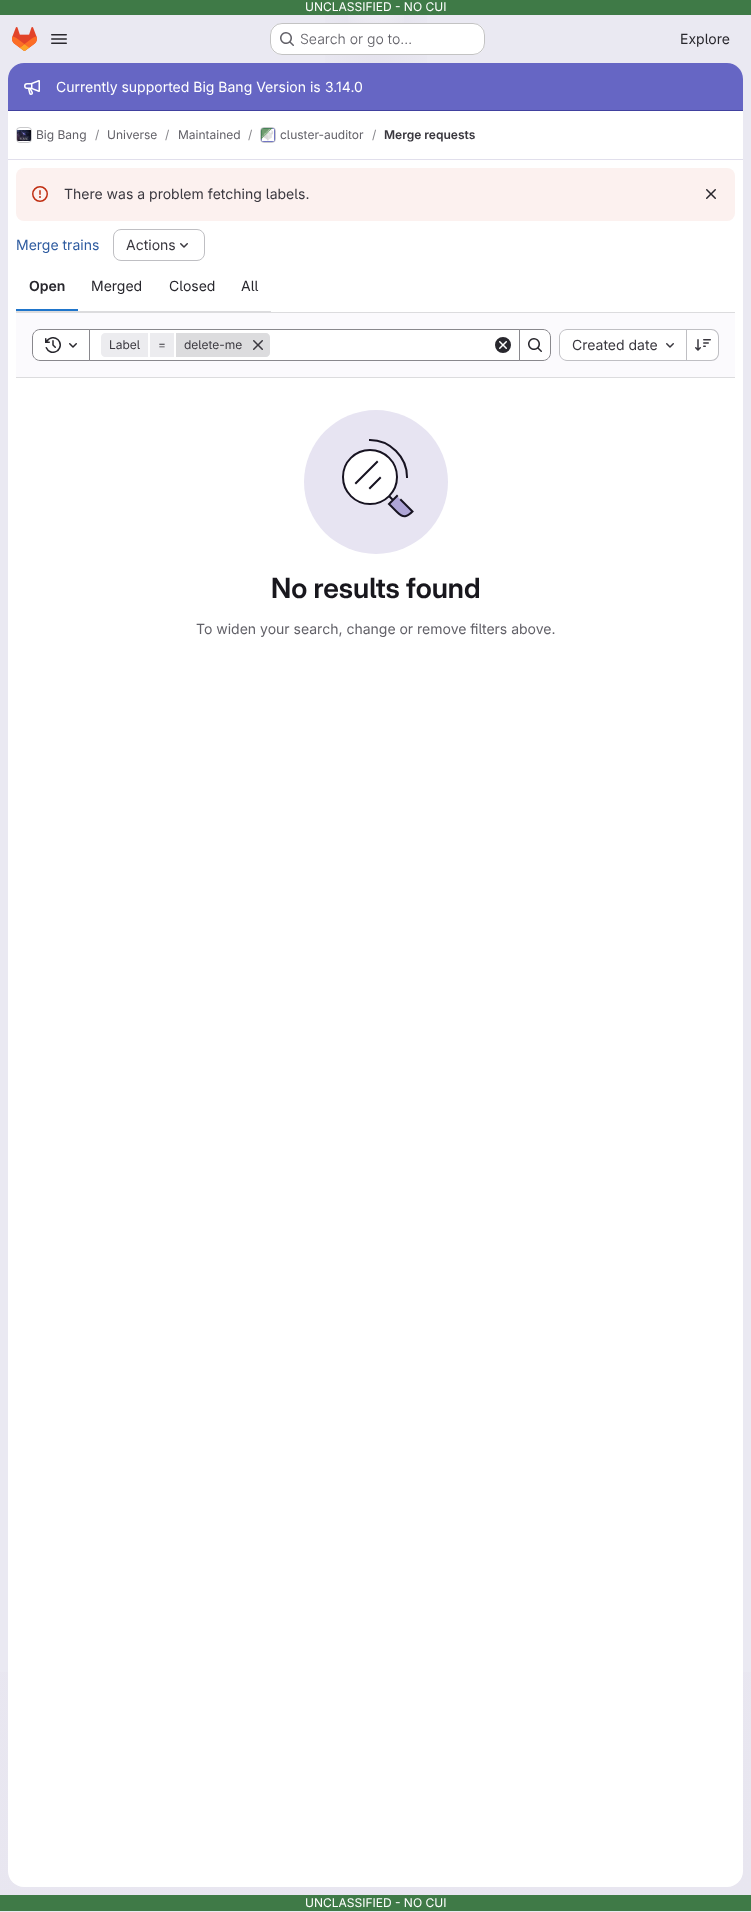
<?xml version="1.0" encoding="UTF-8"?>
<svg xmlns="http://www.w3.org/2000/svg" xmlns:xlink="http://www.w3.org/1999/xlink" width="751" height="1912">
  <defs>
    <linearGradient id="g1" gradientUnits="userSpaceOnUse" x1="550" y1="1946" x2="201" y2="-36"><stop offset="0" stop-color="#e8e6f0" /><stop offset="0.7" stop-color="#eae9f2" /></linearGradient>
    <radialGradient id="g2" gradientUnits="userSpaceOnUse" cx="0" cy="0" r="1" gradientTransform="matrix(376 0 0 1912 376 -1)"><stop offset="0" stop-color="#e4e2ed" /><stop offset="0.19" stop-color="#e4e2ed" stop-opacity="0" /></radialGradient>
    <radialGradient id="g3" gradientUnits="userSpaceOnUse" cx="0" cy="0" r="1" gradientTransform="matrix(376 0 0 1912 376 -1)"><stop offset="0" stop-color="#e4e2ec" /><stop offset="0.13" stop-color="#e4e2ec" stop-opacity="0" /></radialGradient>
    <radialGradient id="g4" gradientUnits="userSpaceOnUse" cx="376" cy="-1" r="1949"><stop offset="0" stop-color="#ffffff" stop-opacity="0.6" /><stop offset="0.02" stop-color="#ffffff" stop-opacity="0" /></radialGradient>
  </defs>
  <rect width="100%" height="100%" fill="#eae9f2" />
  <rect y="1672" width="751" height="223" fill="url(#g1)" />
  <rect x="325" y="15" width="102" height="48" fill="url(#g2)" />
  <rect x="375" y="22" width="2" height="1" fill="url(#g3)" />
  <rect x="348" y="15" width="56" height="8" fill="url(#g4)" />
  <rect width="751" height="15" fill="#3f7a47" />
  <image x="12" y="27" width="25" height="24" xlink:href="image1.png" />
  <image x="51" y="34" width="16" height="10" xlink:href="image2.png" />
  <rect x="270" y="23" width="215" height="32" rx="12" fill="#ffffff" />
  <rect x="270.5" y="23.5" width="214" height="31" rx="11.5" fill="none" stroke="#050506" stroke-opacity="0.24" />
  <image x="280" y="32" width="14" height="14" xlink:href="image3.png" />
  <rect x="8" y="63" width="735" height="1824" rx="16" fill="#ffffff" />
  <path d="M 24 63 h 703 c 9 0 16 7 16 16 v 32 h -735 v -32 c 0 -9 7 -16 16 -16 z" fill="#6666c4" />
  <rect x="8" y="110" width="735" height="1" fill="#41419f" />
  <image x="24" y="80" width="16" height="15" xlink:href="image4.png" />
  <rect x="8" y="159" width="735" height="1" fill="#e1dfec" />
  <rect x="16.5" y="127.5" width="15" height="15" rx="3.5" fill="none" stroke="#dcdcde" />
  <image x="17" y="130" width="14" height="11" xlink:href="image5.png" />
  <rect x="16.5" y="127.5" width="15" height="15" rx="3.5" fill="none" stroke="#050506" stroke-opacity="0.08" />
  <rect x="260.5" y="127.5" width="15" height="15" rx="3.5" fill="none" stroke="#dcdcde" />
  <image x="261" y="128" width="14" height="14" xlink:href="image6.png" />
  <rect x="260.5" y="127.5" width="15" height="15" rx="3.5" fill="none" stroke="#050506" stroke-opacity="0.08" />
  <rect x="16" y="168" width="719" height="53" rx="8" fill="#fcf1ef" />
  <image x="32" y="186" width="16" height="16" xlink:href="image7.png" />
  <image x="706" y="189" width="10" height="10" xlink:href="image8.png" />
  <rect x="16" y="312" width="719" height="1" fill="#dcdcde" />
  <rect x="113.5" y="229.5" width="91" height="31" rx="7.5" fill="none" stroke="#bfbfc3" />
  <image x="180" y="243" width="8" height="5" xlink:href="image9.png" />
  <rect x="16" y="311" width="255" height="1" fill="#dcdcde" />
  <rect x="16" y="309" width="62" height="2" fill="#1f75cb" />
  <rect x="16" y="313" width="719" height="64" fill="#fbfafd" />
  <rect x="16" y="377" width="719" height="1" fill="#dcdcde" />
  <rect x="89.5" y="329.5" width="430" height="31" fill="#ffffff" stroke="#89888d" />
  <path d="M 40 329.5 h 49.5 v 31 h -49.5 c -4 0 -7.5 -3.5 -7.5 -7.5 v -16 c 0 -4 3.5 -7.5 7.5 -7.5 z" fill="#ffffff" stroke="#89888d" />
  <image x="45" y="337" width="16" height="16" xlink:href="image10.png" />
  <image x="69" y="343" width="8" height="5" xlink:href="image11.png" />
  <path d="M 105 333 h 43 v 24 h -43 c -2 0 -4 -2 -4 -4 v -16 c 0 -2 2 -4 4 -4 z" fill="#ececef" />
  <rect x="150" y="333" width="24" height="24" fill="#ececef" />
  <path d="M 176 333 h 90 c 2 0 4 2 4 4 v 16 c 0 2 -2 4 -4 4 h -90 z" fill="#dcdcde" />
  <image x="253" y="340" width="10" height="10" xlink:href="image12.png" />
  <image x="495" y="337" width="16" height="16" xlink:href="image13.png" />
  <path d="M 519.5 329.5 h 23.5 c 4 0 7.5 3.5 7.5 7.5 v 16 c 0 4 -3.5 7.5 -7.5 7.5 h -23.5 z" fill="#ffffff" stroke="#89888d" />
  <image x="528" y="338" width="14" height="14" xlink:href="image14.png" />
  <path d="M 567 330 h 119 v 30 h -119 c -4 0 -7 -3 -7 -7 v -16 c 0 -4 3 -7 7 -7 z" fill="#ffffff" />
  <path d="M 567 329 h 119 v 32 h -119 c -4 0 -8 -4 -8 -8 v -16 c 0 -4 4 -8 8 -8 z m 0 1 h 119 v 30 h -119 c -4 0 -7 -3 -7 -7 v -16 c 0 -4 3 -7 7 -7 z" fill="#bfbfc3" fill-rule="evenodd" />
  <image x="666" y="343" width="8" height="5" xlink:href="image9.png" />
  <path d="M 687 330 h 24 c 4 0 7 3 7 7 v 16 c 0 4 -3 7 -7 7 h -24 z" fill="#ffffff" />
  <path d="M 687 329 h 24 c 4.5 0 8 3.5 8 8 v 16 c 0 4.5 -3.5 8 -8 8 h -24 z m 0 1 h 24 c 4 0 7 3 7 7 v 16 c 0 4 -3 7 -7 7 h -24 z" fill="#bfbfc3" fill-rule="evenodd" />
  <rect x="686" y="329" width="1" height="32" fill="#bfbfc3" />
  <image x="695" y="339" width="16" height="12" xlink:href="image15.png" />
  <circle cx="376" cy="482" r="72" fill="#e7e4f2" />
  <path d="M 397 496 l -8 8 l 8 8 c 6.5 6.5 10 5 15.5 -0.5 z" fill="#aea5d6" />
  <path d="M 397 496 l -8 8 l 8 8 c 6.5 6.5 10 5 15.5 -0.5 l -11.5 -11.5 m -12 -4 l 3 3" fill="none" stroke="#171321" stroke-width="2" stroke-linecap="square" />
  <circle cx="370" cy="477" r="27" fill="#ffffff" stroke="#171321" stroke-width="2" />
  <path d="M 370 488 l 10 -10 m -24 5 l 21 -21 m 30 15 c 0 -20 -17 -37 -37 -37" fill="none" stroke="#171321" stroke-width="2" stroke-linecap="square" />
  <rect y="1895" width="751" height="16" fill="#3f7a47" />
  <text x="305" y="11" style="font-family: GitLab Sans; font-size: 12px; fill: #ffffff">UNCLASSIFIED - NO CUI</text>
  <text x="300" y="44" style="font-family: GitLab Sans; font-size: 14px; font-weight: 300; fill: #626168">Search or go to…</text>
  <text x="680" y="44" style="font-family: GitLab Sans; font-size: 14px; fill: #28272d">Explore</text>
  <text x="56" y="92" style="font-family: GitLab Sans; font-size: 14px; fill: #ffffff">Currently supported Big Bang Version is 3.14.0</text>
  <text x="36" y="139" style="font-family: GitLab Sans; font-size: 12px; fill: #626168">Big Bang</text>
  <text x="95" y="139" style="font-family: GitLab Sans; font-size: 12px; fill: #89888d">/</text>
  <text x="107" y="139" style="font-family: GitLab Sans; font-size: 12px; fill: #626168">Universe</text>
  <text x="165" y="139" style="font-family: GitLab Sans; font-size: 12px; fill: #89888d">/</text>
  <text x="178" y="139" style="font-family: GitLab Sans; font-size: 12px; fill: #626168">Maintained</text>
  <text x="248" y="139" style="font-family: GitLab Sans; font-size: 12px; fill: #89888d">/</text>
  <text x="280" y="139" style="font-family: GitLab Sans; font-size: 12px; fill: #626168">cluster-auditor</text>
  <text x="372" y="139" style="font-family: GitLab Sans; font-size: 12px; fill: #89888d">/</text>
  <text x="384" y="139" style="font-family: 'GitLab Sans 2'; font-size: 12px; font-weight: 600; fill: #3a383f">Merge requests</text>
  <text x="64" y="199" style="font-family: GitLab Sans; font-size: 14px; fill: #3a383f">There was a problem fetching labels.</text>
  <text x="16" y="250" style="font-family: GitLab Sans; font-size: 14px; fill: #2f5ca0">Merge trains</text>
  <text x="126" y="250" style="font-family: GitLab Sans; font-size: 14px; fill: #3a383f">Actions</text>
  <text x="29" y="291" style="font-family: 'GitLab Sans 2'; font-size: 14px; font-weight: 600; fill: #28272d">Open</text>
  <text x="91" y="291" style="font-family: GitLab Sans; font-size: 14px; fill: #28272d">Merged</text>
  <text x="169" y="291" style="font-family: GitLab Sans; font-size: 14px; fill: #28272d">Closed</text>
  <text x="241" y="291" style="font-family: GitLab Sans; font-size: 14px; fill: #28272d">All</text>
  <text x="109" y="349" style="font-family: GitLab Sans; font-size: 12px; fill: #3a383f">Label</text>
  <text x="158" y="349" style="font-family: GitLab Sans; font-size: 12px; fill: #3a383f">=</text>
  <text x="184" y="349" style="font-family: GitLab Sans; font-size: 12px; fill: #3a383f">delete-me</text>
  <text x="572" y="350" style="font-family: GitLab Sans; font-size: 14px; fill: #3a383f">Created date</text>
  <text x="271" y="598" style="font-family: GitLab Sans; font-size: 28px; font-weight: 600; fill: #18171d">No results found</text>
  <text x="196" y="634" style="font-family: GitLab Sans; font-size: 14px; fill: #626168">To widen your search, change or remove filters above.</text>
  <text x="305" y="1907" style="font-family: GitLab Sans; font-size: 12px; fill: #ffffff">UNCLASSIFIED - NO CUI</text>
</svg>
